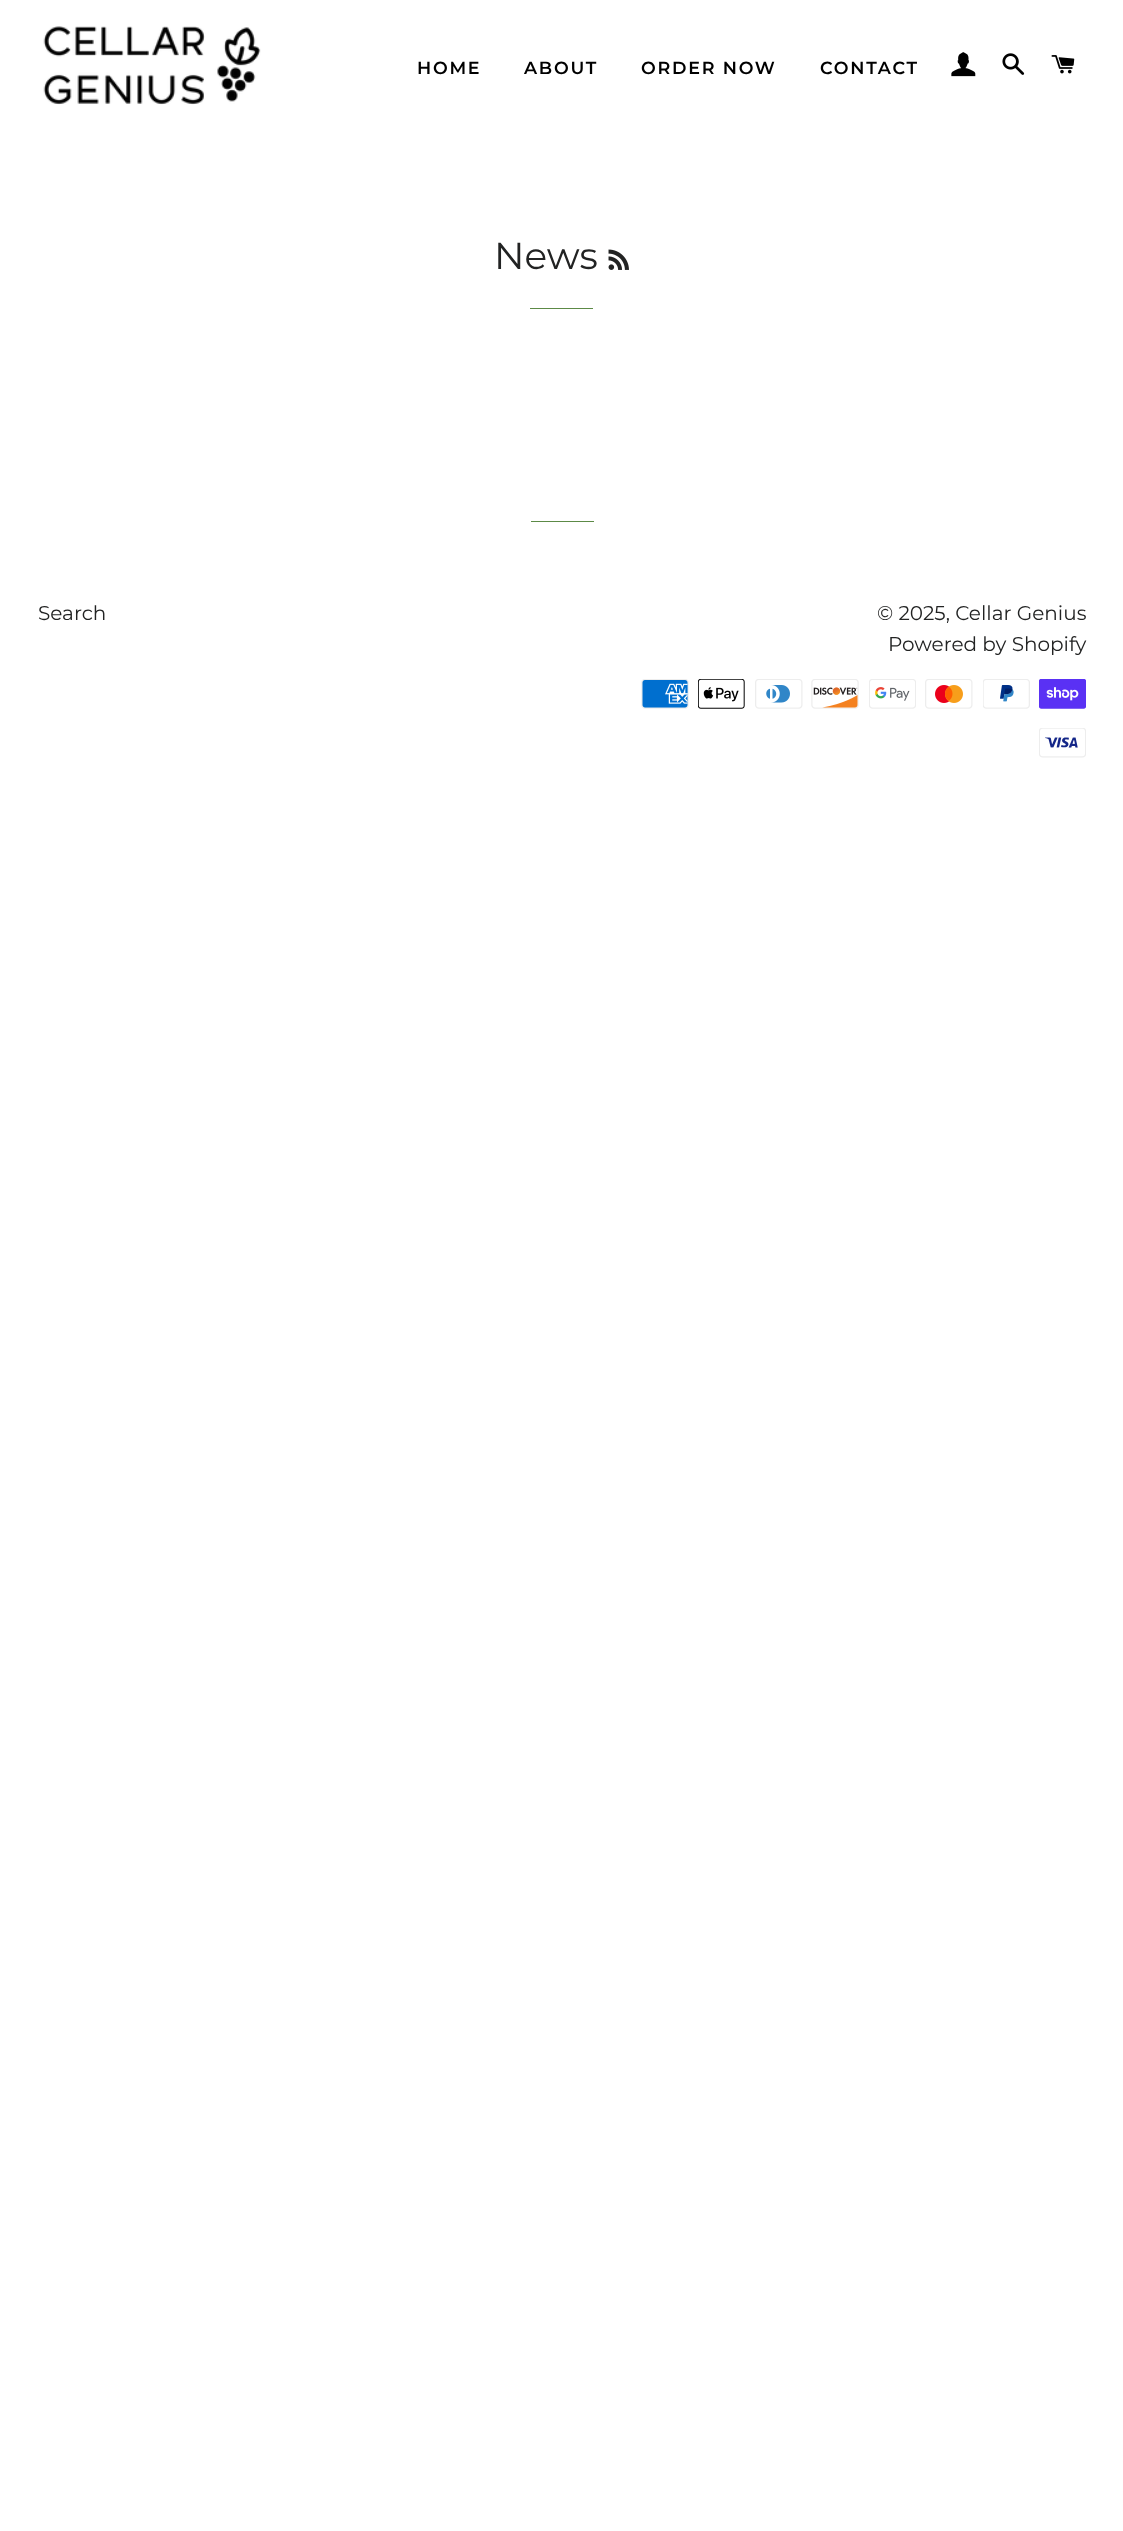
<?xml version="1.0" encoding="UTF-8"?>
<svg xmlns="http://www.w3.org/2000/svg" xmlns:xlink="http://www.w3.org/1999/xlink" width="1123" height="2531">
  <rect width="100%" height="100%" fill="#ffffff" />
  <image x="43" y="26" width="218" height="79" xlink:href="image1.png" />
  <image x="951" y="52" width="25" height="25" xlink:href="image2.png" />
  <image x="1002" y="53" width="23" height="22" xlink:href="image3.png" />
  <image x="1051" y="55" width="24" height="19" xlink:href="image4.png" />
  <image x="608" y="249" width="21" height="21" xlink:href="image5.png" />
  <rect x="530" y="308" width="63" height="1" fill="#5c8a46" />
  <rect x="531" y="521" width="63" height="1" fill="#5c8a46" />
  <image x="641" y="679" width="48" height="30" xlink:href="image6.png" />
  <image x="698" y="679" width="47" height="30" xlink:href="image7.png" />
  <image x="755" y="679" width="48" height="30" xlink:href="image8.png" />
  <image x="811" y="679" width="48" height="30" xlink:href="image9.png" />
  <image x="869" y="679" width="47" height="30" xlink:href="image10.png" />
  <image x="925" y="679" width="48" height="30" xlink:href="image11.png" />
  <image x="983" y="679" width="47" height="30" xlink:href="image12.png" />
  <image x="1039" y="679" width="47" height="30" xlink:href="image13.png" />
  <image x="1039" y="728" width="47" height="30" xlink:href="image14.png" />
  <text x="417" y="74" style="font-family: Montserrat; font-size: 17.5px; font-weight: 600; letter-spacing: 1.75px; fill: #000000">HOME</text>
  <text x="524" y="74" style="font-family: Montserrat; font-size: 17.5px; font-weight: 600; letter-spacing: 1.75px; fill: #000000">ABOUT</text>
  <text x="641" y="74" style="font-family: Montserrat; font-size: 17.5px; font-weight: 600; letter-spacing: 1.75px; fill: #000000">ORDER NOW</text>
  <text x="820" y="74" style="font-family: Montserrat; font-size: 17.5px; font-weight: 600; letter-spacing: 1.75px; fill: #000000">CONTACT</text>
  <text x="494" y="269" style="font-family: Montserrat; font-size: 37.5px; fill: #222323">News</text>
  <text x="38" y="620" style="font-family: Montserrat; font-size: 20px; fill: #222323">Search</text>
  <text x="877" y="620" style="font-family: Montserrat; font-size: 20px; fill: #222323">© 2025, Cellar Genius</text>
  <text x="888" y="651" style="font-family: Montserrat; font-size: 20px; fill: #222323">Powered by Shopify</text>
</svg>
